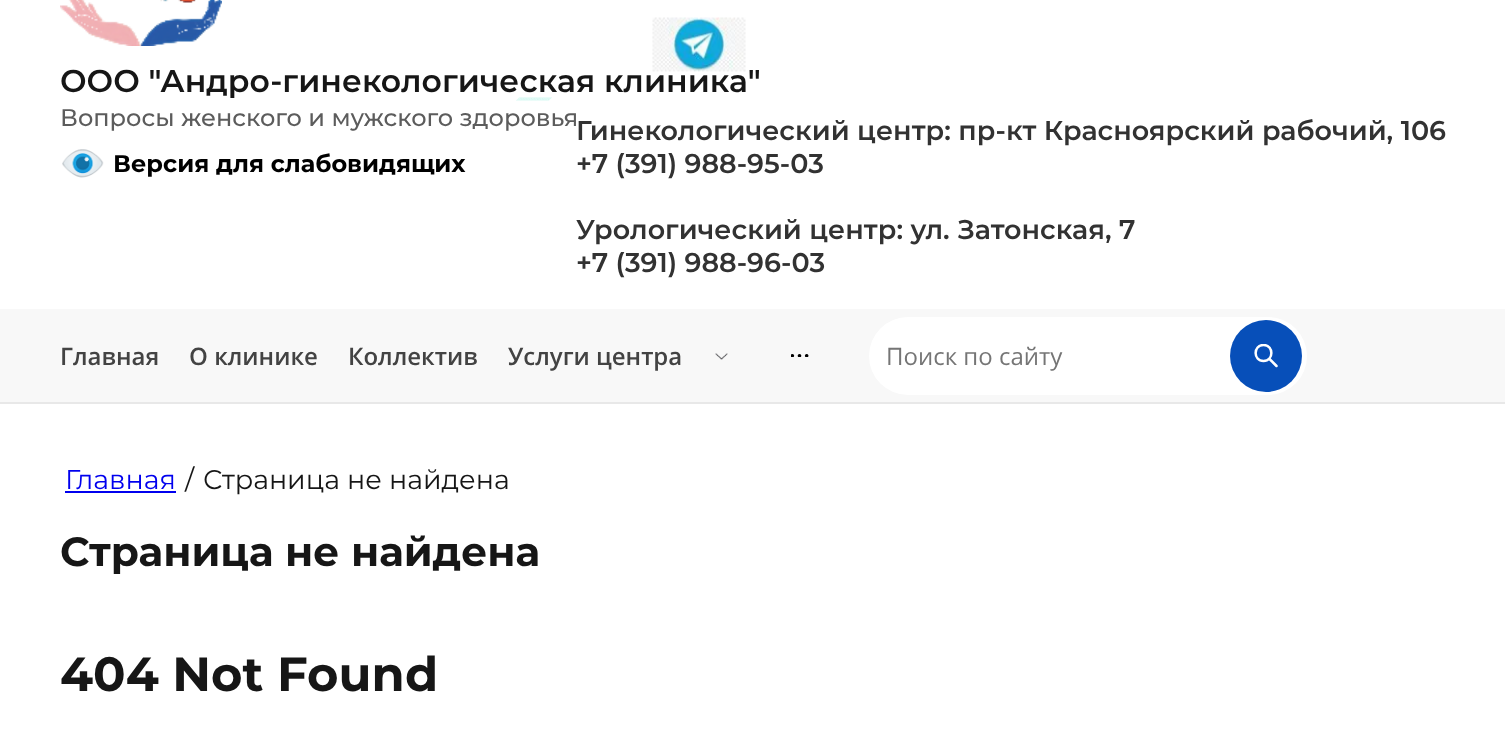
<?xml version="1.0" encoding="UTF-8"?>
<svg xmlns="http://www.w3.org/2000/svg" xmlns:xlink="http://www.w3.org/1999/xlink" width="1505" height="738">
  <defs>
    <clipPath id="clip1"><rect x="1254" y="344" width="24" height="24" /></clipPath>
  </defs>
  <rect width="100%" height="100%" fill="#ffffff" />
  <image x="60" y="0" width="162" height="46" xlink:href="image1.png" />
  <image x="62" y="149" width="42" height="29" xlink:href="image2.png" />
  <rect y="309" width="1505" height="93" fill="#f8f8f8" />
  <image x="715" y="353" width="13" height="7" xlink:href="image5.png" />
  <image x="791" y="354" width="18" height="3" xlink:href="image6.png" />
  <rect x="869" y="317" width="438" height="78" rx="39" fill="#ffffff" />
  <circle cx="1266" cy="356" r="36" fill="#074fb9" />
  <g clip-path="url(#clip1)">
    <path d="M 1263.5 361 c 10.5 0 10.5 -16 0 -16 c -10.5 0 -10.5 16 0 16 z m 6 -2 l 7 7" fill="none" stroke="#ffffff" stroke-width="2.5" stroke-linecap="round" />
  </g>
  <rect y="402" width="1505" height="2" fill="#e8e8e8" />
  <rect x="65" y="491" width="111" height="2" fill="#0000ee" />
  <text x="60" y="92" style="font-family: Montserrat; font-size: 31.5px; font-weight: 600; fill: #161616">ООО "Андро-гинекологическая клиника"</text>
  <text x="60" y="126" style="font-family: Montserrat; font-size: 24px; font-weight: 500; fill: #5c5c5c">Вопросы женского и мужского здоровья</text>
  <text x="113" y="172" style="font-family: Montserrat; font-size: 24px; font-weight: bold; fill: #000000">Версия для слабовидящих</text>
  <image x="516" y="97" width="36" height="4" xlink:href="image3.png" />
  <image x="652" y="17" width="94" height="55" xlink:href="image4.png" />
  <text x="576" y="140" style="font-family: Montserrat; font-size: 27px; font-weight: 600; fill: #323232">Гинекологический центр: пр-кт Красноярский рабочий, 106</text>
  <text x="576" y="173" style="font-family: Montserrat; font-size: 27px; font-weight: 600; fill: #323232">+7 (391) 988-95-03</text>
  <text x="576" y="239" style="font-family: Montserrat; font-size: 27px; font-weight: 600; fill: #323232">Урологический центр: ул. Затонская, 7</text>
  <text x="576" y="272" style="font-family: Montserrat; font-size: 27px; font-weight: 600; fill: #323232">+7 (391) 988-96-03</text>
  <text x="60" y="365" style="font-family: Open Sans; font-size: 24px; font-weight: 600; fill: #434343">Главная</text>
  <text x="189" y="365" style="font-family: Open Sans; font-size: 24px; font-weight: 600; fill: #434343">О клинике</text>
  <text x="348" y="365" style="font-family: Open Sans; font-size: 24px; font-weight: 600; fill: #434343">Коллектив</text>
  <text x="508" y="365" style="font-family: Open Sans; font-size: 24px; font-weight: 600; fill: #434343">Услуги центра</text>
  <text x="886" y="365" style="font-family: Open Sans; font-size: 24px; fill: #757575">Поиск по сайту</text>
  <text x="65" y="489" style="font-family: Montserrat; font-size: 27px; fill: #0000ee">Главная</text>
  <text x="185" y="489" style="font-family: Montserrat; font-size: 27px; fill: #161616">/</text>
  <text x="203" y="489" style="font-family: Montserrat; font-size: 27px; fill: #161616">Страница не найдена</text>
  <text x="60" y="566" style="font-family: Montserrat; font-size: 40.7px; font-weight: bold; fill: #161616">Страница не найдена</text>
  <text x="60" y="691" style="font-family: Montserrat; font-size: 48px; font-weight: bold; fill: #161616">404 Not Found</text>
</svg>
